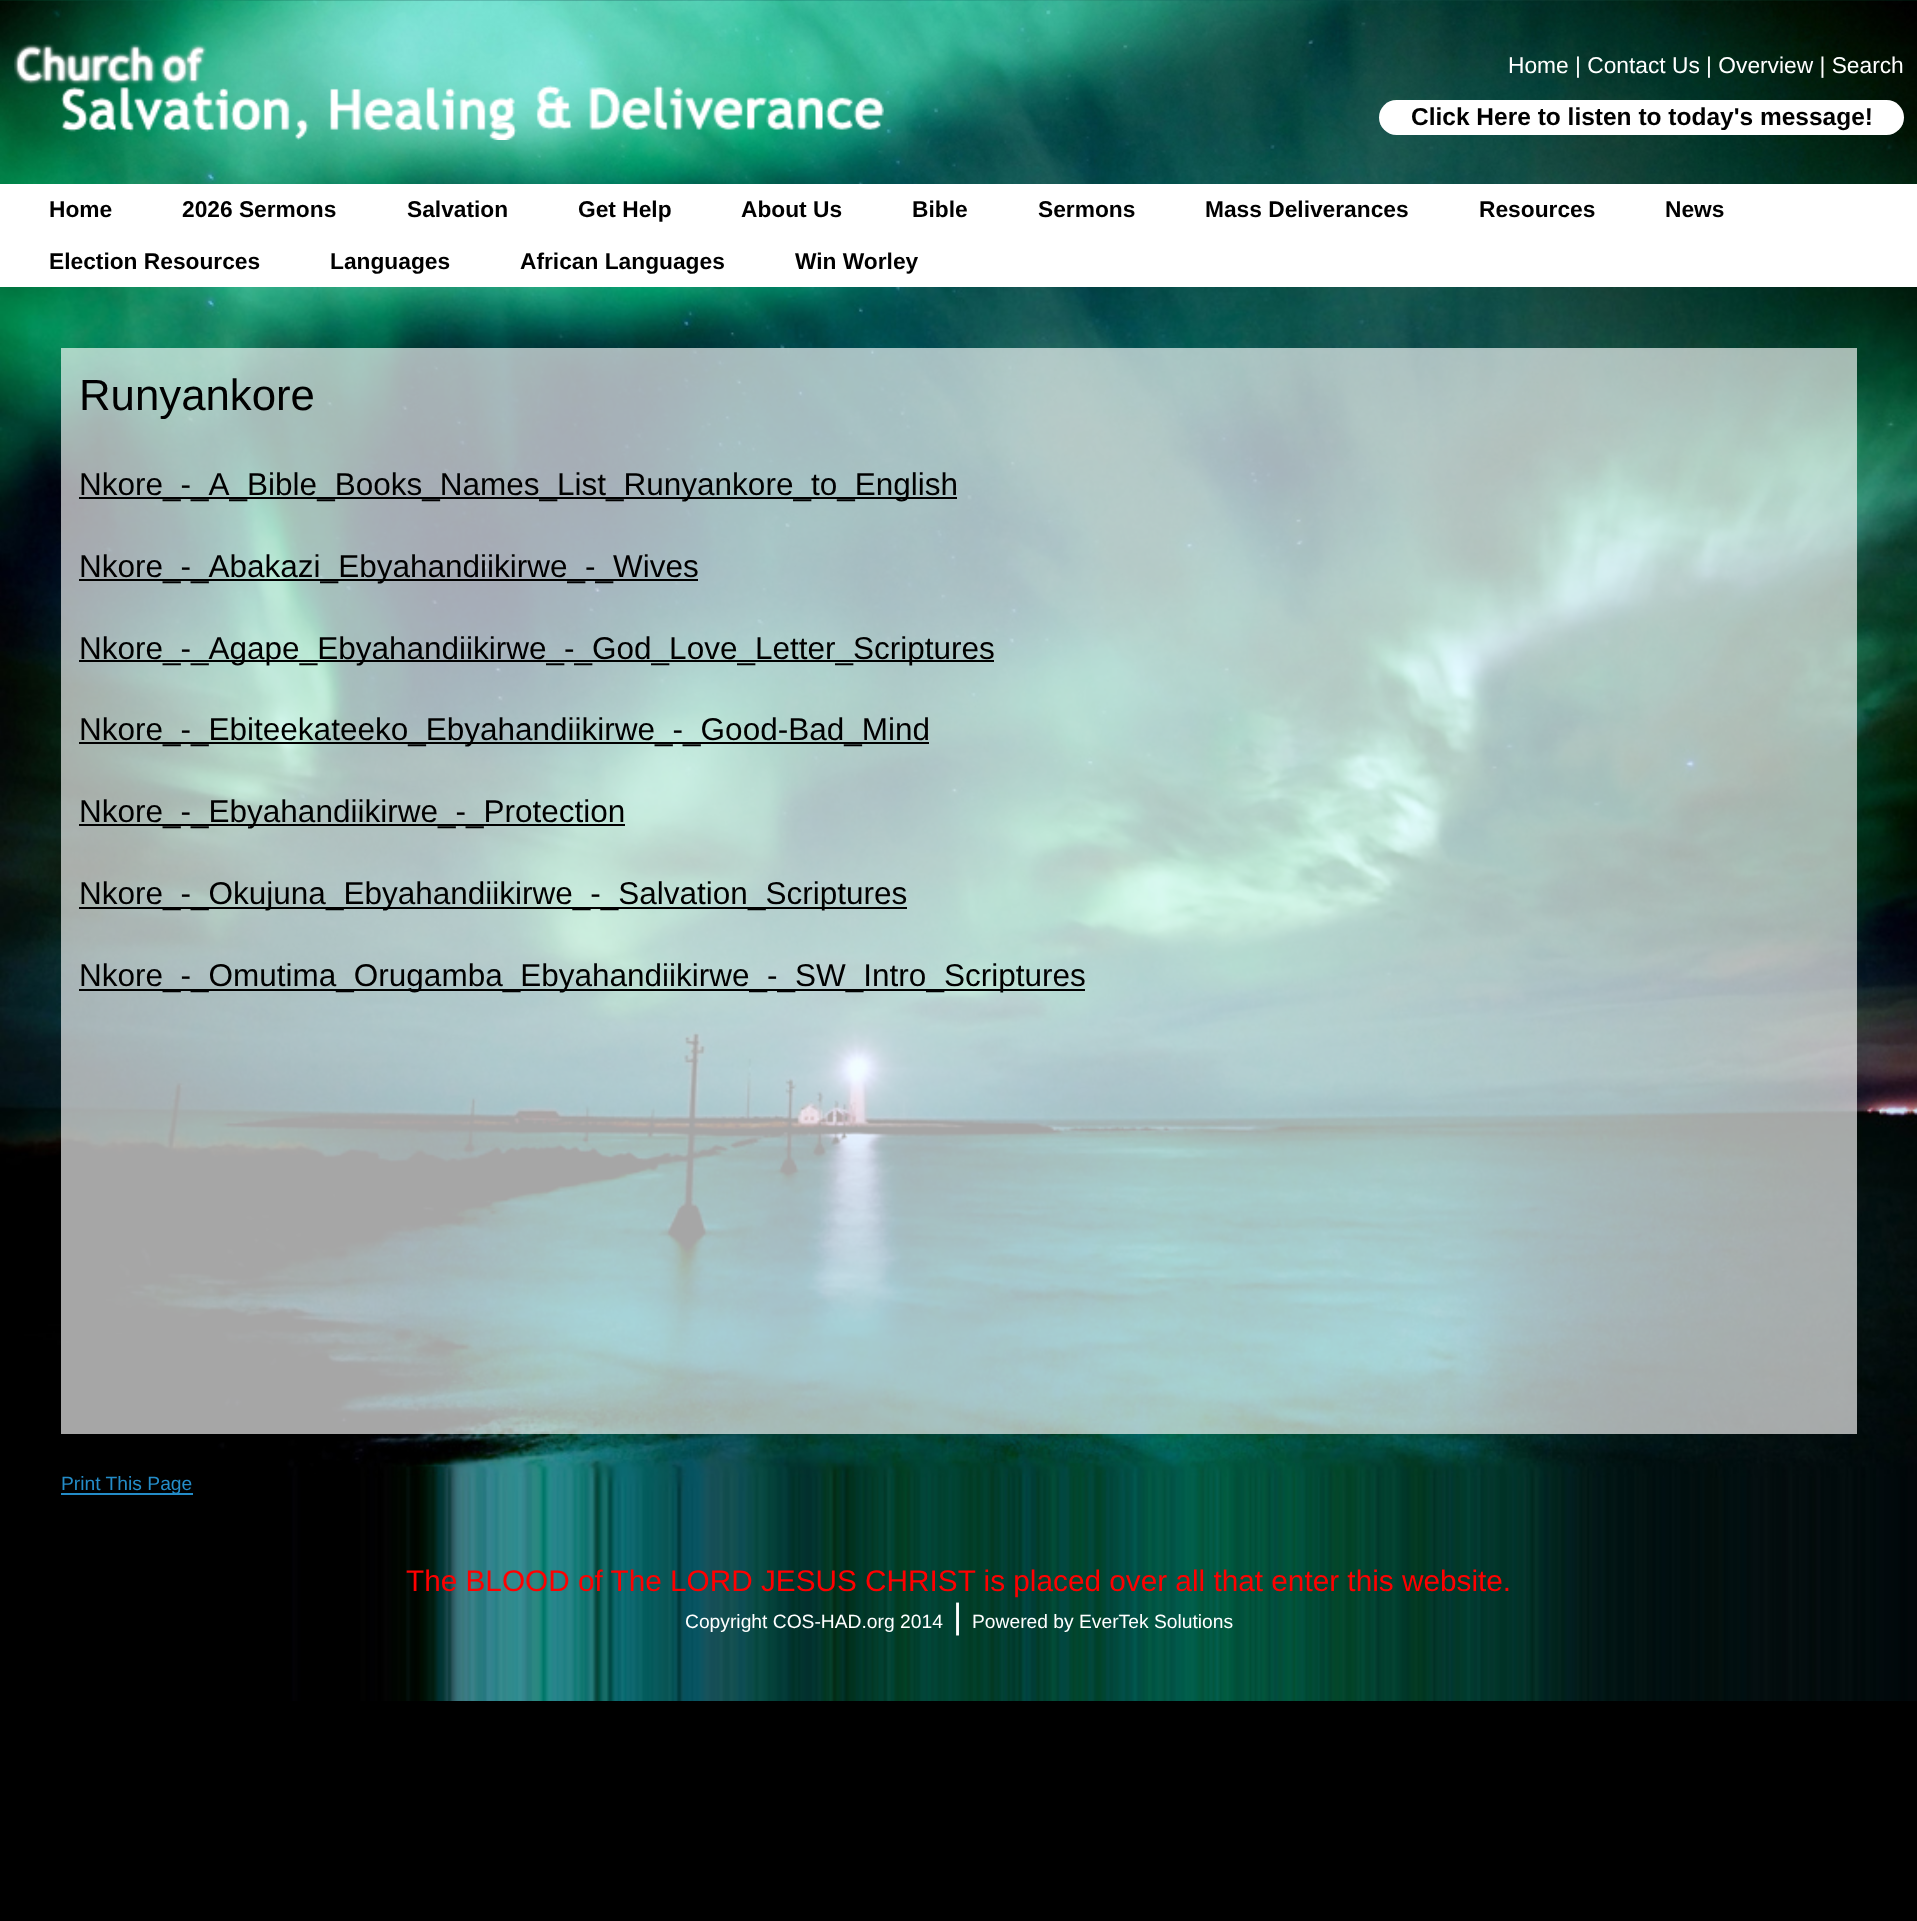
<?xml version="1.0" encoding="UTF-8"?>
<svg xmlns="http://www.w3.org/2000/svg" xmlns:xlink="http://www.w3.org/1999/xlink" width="1917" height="1921">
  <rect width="100%" height="100%" fill="#000000" />
  <image x="0" y="0" width="1917" height="184" xlink:href="image1.png" />
  <image x="14" y="44" width="870" height="96" xlink:href="image2.png" />
  <rect x="1379" y="100" width="525" height="35" rx="17.5" fill="#ffffff" />
  <rect y="184" width="1917" height="103" fill="#ffffff" />
  <image x="0" y="287" width="1917" height="1414" xlink:href="image3.png" />
  <rect x="61" y="348" width="1796" height="1086" fill="#ffffff" fill-opacity="0.65" />
  <rect x="79" y="497" width="878" height="2" fill="#000000" />
  <rect x="79" y="579" width="619" height="2" fill="#000000" />
  <rect x="79" y="660" width="915" height="2" fill="#000000" />
  <rect x="79" y="742" width="850" height="2" fill="#000000" />
  <rect x="79" y="824" width="546" height="2" fill="#000000" />
  <rect x="79" y="907" width="828" height="2" fill="#000000" />
  <rect x="79" y="989" width="1006" height="2" fill="#000000" />
  <rect x="61" y="1493" width="132" height="2" fill="#248cc8" />
  <text x="1508" y="73" style="font-family: Liberation Sans; font-size: 22.75px; fill: #ffffff">Home | Contact Us | Overview | Search</text>
  <text x="1411" y="125" style="font-family: Liberation Sans; font-size: 24.5px; font-weight: bold; fill: #000000">Click Here to listen to today's message!</text>
  <text x="49" y="217" style="font-family: Liberation Sans; font-size: 22.75px; font-weight: bold; fill: #000000">Home</text>
  <text x="182" y="217" style="font-family: Liberation Sans; font-size: 22.75px; font-weight: bold; fill: #000000">2026 Sermons</text>
  <text x="407" y="217" style="font-family: Liberation Sans; font-size: 22.75px; font-weight: bold; fill: #000000">Salvation</text>
  <text x="578" y="217" style="font-family: Liberation Sans; font-size: 22.75px; font-weight: bold; fill: #000000">Get Help</text>
  <text x="741" y="217" style="font-family: Liberation Sans; font-size: 22.75px; font-weight: bold; fill: #000000">About Us</text>
  <text x="912" y="217" style="font-family: Liberation Sans; font-size: 22.75px; font-weight: bold; fill: #000000">Bible</text>
  <text x="1038" y="217" style="font-family: Liberation Sans; font-size: 22.75px; font-weight: bold; fill: #000000">Sermons</text>
  <text x="1205" y="217" style="font-family: Liberation Sans; font-size: 22.75px; font-weight: bold; fill: #000000">Mass Deliverances</text>
  <text x="1479" y="217" style="font-family: Liberation Sans; font-size: 22.75px; font-weight: bold; fill: #000000">Resources</text>
  <text x="1665" y="217" style="font-family: Liberation Sans; font-size: 22.75px; font-weight: bold; fill: #000000">News</text>
  <text x="49" y="269" style="font-family: Liberation Sans; font-size: 22.75px; font-weight: bold; fill: #000000">Election Resources</text>
  <text x="330" y="269" style="font-family: Liberation Sans; font-size: 22.75px; font-weight: bold; fill: #000000">Languages</text>
  <text x="520" y="269" style="font-family: Liberation Sans; font-size: 22.75px; font-weight: bold; fill: #000000">African Languages</text>
  <text x="795" y="269" style="font-family: Liberation Sans; font-size: 22.75px; font-weight: bold; fill: #000000">Win Worley</text>
  <text x="79" y="410" style="font-family: Liberation Sans; font-size: 43.75px; fill: #000000">Runyankore</text>
  <text x="79" y="495" style="font-family: Liberation Sans; font-size: 31.5px; fill: #000000">Nkore_-_A_Bible_Books_Names_List_Runyankore_to_English</text>
  <text x="79" y="577" style="font-family: Liberation Sans; font-size: 31.5px; fill: #000000">Nkore_-_Abakazi_Ebyahandiikirwe_-_Wives</text>
  <text x="79" y="659" style="font-family: Liberation Sans; font-size: 31.5px; fill: #000000">Nkore_-_Agape_Ebyahandiikirwe_-_God_Love_Letter_Scriptures</text>
  <text x="79" y="740" style="font-family: Liberation Sans; font-size: 31.5px; fill: #000000">Nkore_-_Ebiteekateeko_Ebyahandiikirwe_-_Good-Bad_Mind</text>
  <text x="79" y="822" style="font-family: Liberation Sans; font-size: 31.5px; fill: #000000">Nkore_-_Ebyahandiikirwe_-_Protection</text>
  <text x="79" y="904" style="font-family: Liberation Sans; font-size: 31.5px; fill: #000000">Nkore_-_Okujuna_Ebyahandiikirwe_-_Salvation_Scriptures</text>
  <text x="79" y="986" style="font-family: Liberation Sans; font-size: 31.5px; fill: #000000">Nkore_-_Omutima_Orugamba_Ebyahandiikirwe_-_SW_Intro_Scriptures</text>
  <text x="61" y="1490" style="font-family: Liberation Sans; font-size: 19.25px; fill: #248cc8">Print This Page</text>
  <text x="406" y="1591" style="font-family: Liberation Sans; font-size: 29.75px; fill: #ff0000">The BLOOD of The LORD JESUS CHRIST is placed over all that enter this website.</text>
  <text x="685" y="1628" style="font-family: Liberation Sans; font-size: 19.25px; fill: #ffffff">Copyright COS-HAD.org 2014</text>
  <text x="953" y="1628" style="font-family: Liberation Sans; font-size: 35px; fill: #ffffff">|</text>
  <text x="972" y="1628" style="font-family: Liberation Sans; font-size: 19.25px; fill: #ffffff">Powered by EverTek Solutions</text>
</svg>
